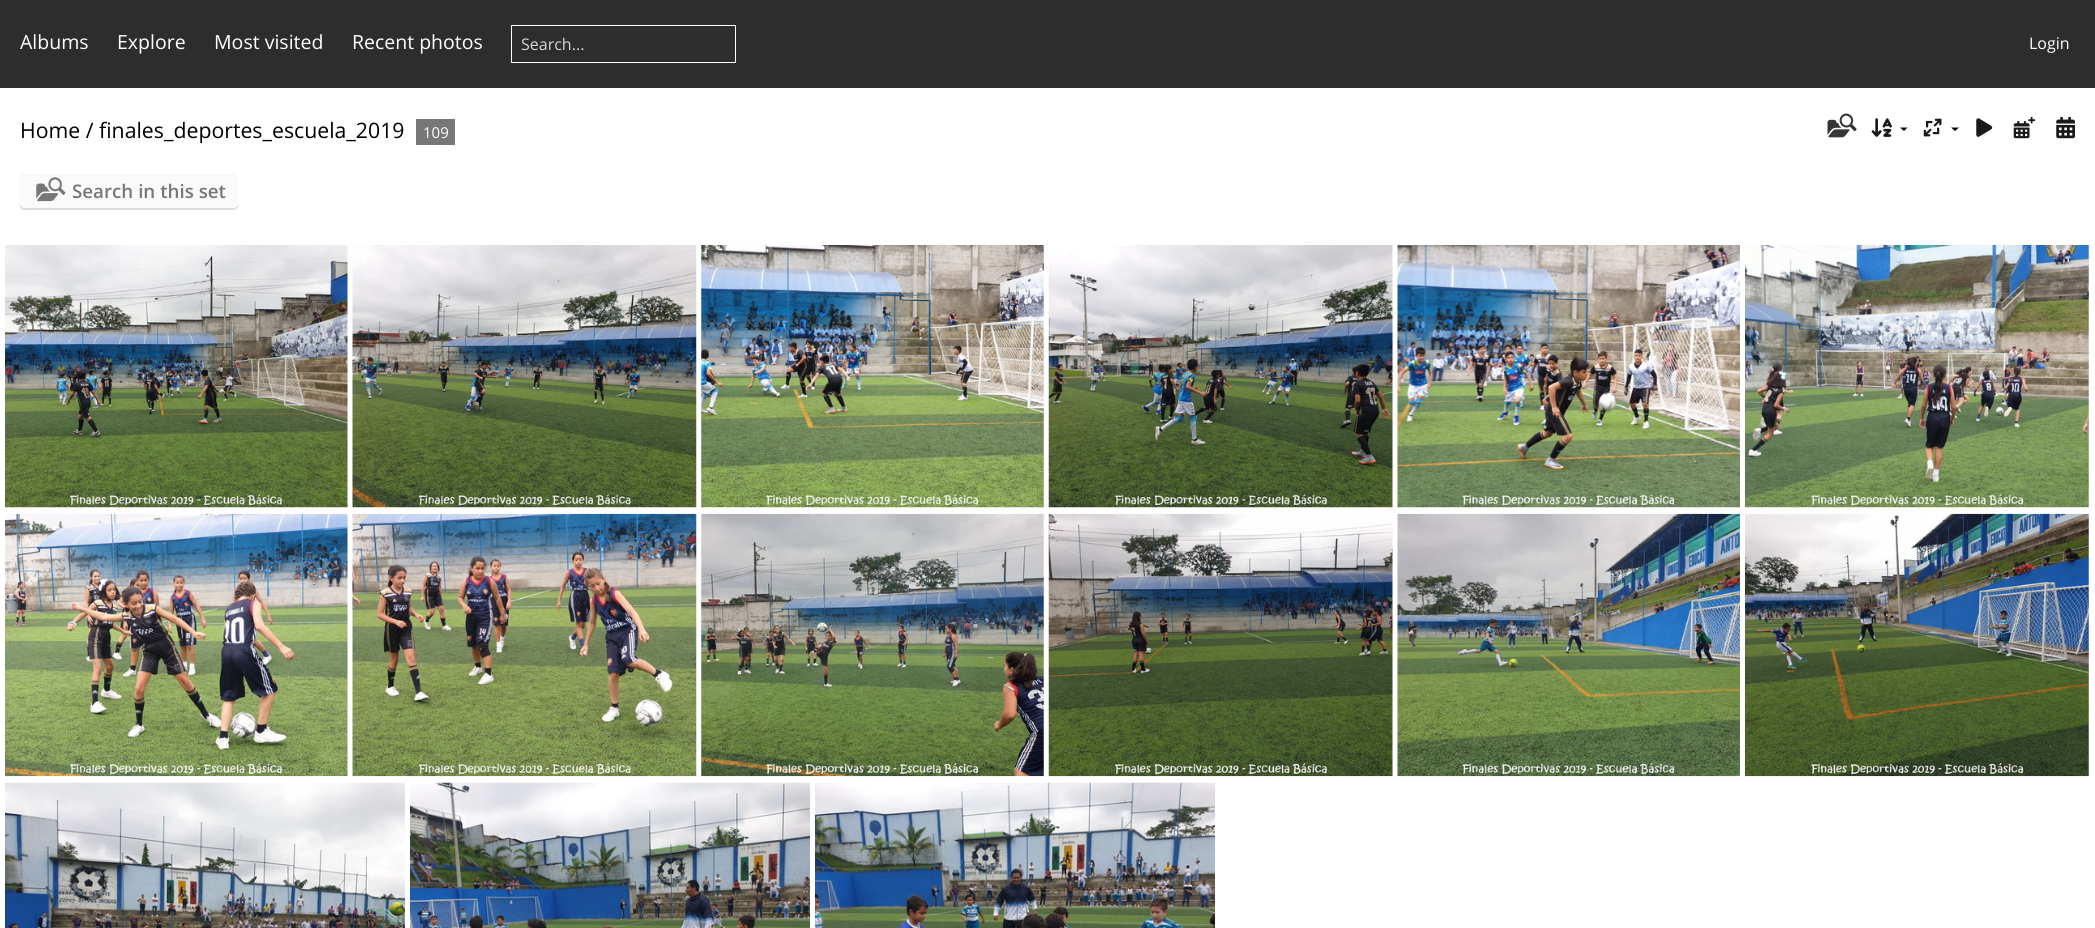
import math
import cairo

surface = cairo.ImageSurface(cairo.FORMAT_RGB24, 2095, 928)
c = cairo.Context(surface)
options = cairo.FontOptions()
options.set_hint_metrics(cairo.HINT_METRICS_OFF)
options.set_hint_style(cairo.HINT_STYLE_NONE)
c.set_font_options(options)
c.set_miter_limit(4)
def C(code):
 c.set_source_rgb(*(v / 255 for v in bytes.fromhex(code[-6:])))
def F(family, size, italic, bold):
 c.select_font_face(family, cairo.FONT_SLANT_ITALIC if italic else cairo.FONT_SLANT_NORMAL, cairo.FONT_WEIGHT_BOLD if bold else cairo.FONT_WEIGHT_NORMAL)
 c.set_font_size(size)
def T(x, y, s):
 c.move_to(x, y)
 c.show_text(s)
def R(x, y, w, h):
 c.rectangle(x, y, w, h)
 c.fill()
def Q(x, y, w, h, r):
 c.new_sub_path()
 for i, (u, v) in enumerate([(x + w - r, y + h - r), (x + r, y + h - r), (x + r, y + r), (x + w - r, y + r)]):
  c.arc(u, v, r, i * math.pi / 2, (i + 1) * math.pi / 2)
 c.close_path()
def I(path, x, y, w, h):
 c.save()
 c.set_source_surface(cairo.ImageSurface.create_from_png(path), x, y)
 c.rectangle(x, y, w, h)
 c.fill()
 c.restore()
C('ffffff')
c.paint()
C('2d2d2d')
R(0,0,2095,88)
F('Open Sans',19.5,0,0)
C('ffffff')
T(20,49,'Albums')
T(117,49,'Explore')
T(214,49,'Most visited')
T(352,49,'Recent photos')
c.rectangle(511.5,25.5,224,37)
c.set_line_width(1)
c.stroke()
F('Open Sans',16,0,0)
C('d6d6d6')
T(521,50,'Search...')
C('ffffff')
T(2029,49,'Login')
F('Open Sans',21.25,0,0)
C('000000')
T(20,138,'Home / finales_deportes_escuela_2019')
C('777777')
R(416,119,39,26)
F('Open Sans',15,0,0)
C('ffffff')
T(423,138,'109')
I('1.png',1827,113,30,25)
I('2.png',1871,118,21,19)
C('000000')
c.new_path()
c.move_to(1900,127.5)
c.line_to(1907.5,127.5)
c.line_to(1904,131)
c.close_path()
c.move_to(1951,127.5)
c.line_to(1959,127.5)
c.line_to(1955,131)
c.close_path()
c.fill()
I('3.png',2013,116,22,23)
I('4.png',2056,116,19,23)
I('5.png',1923,118,19,19)
I('6.png',1976,118,17,19)
C('dbdbdb')
c.new_path()
c.move_to(19,203)
c.curve_to(19,207,21,210,25,210)
c.line_to(233,210)
c.curve_to(240,210,239,201,239,196)
c.line_to(239,179)
c.line_to(239,201)
c.curve_to(239,205,236,208,232,208)
c.line_to(25,208)
c.curve_to(22,208,20,206,19,203)
c.close_path()
c.fill()
C('fafafa')
Q(19,173,220,35,6)
c.fill()
I('7.png',36,177,30,25)
F('Open Sans SemiBold',18.75,0,0)
C('777777')
T(72,198,'Search in this set')
I('8.png',5,245,343,263)
I('9.png',352,245,345,263)
I('10.png',701,245,343,263)
I('11.png',1048,245,345,263)
I('12.png',1397,245,343,263)
I('13.png',1745,245,344,263)
I('14.png',5,513,343,264)
I('15.png',352,513,345,264)
I('16.png',701,513,343,264)
I('17.png',1048,513,345,264)
I('18.png',1397,513,343,264)
I('19.png',1745,513,344,264)
I('20.png',5,782,400,146)
I('21.png',410,782,400,146)
I('22.png',815,782,400,146)
surface.write_to_png('o.png')
